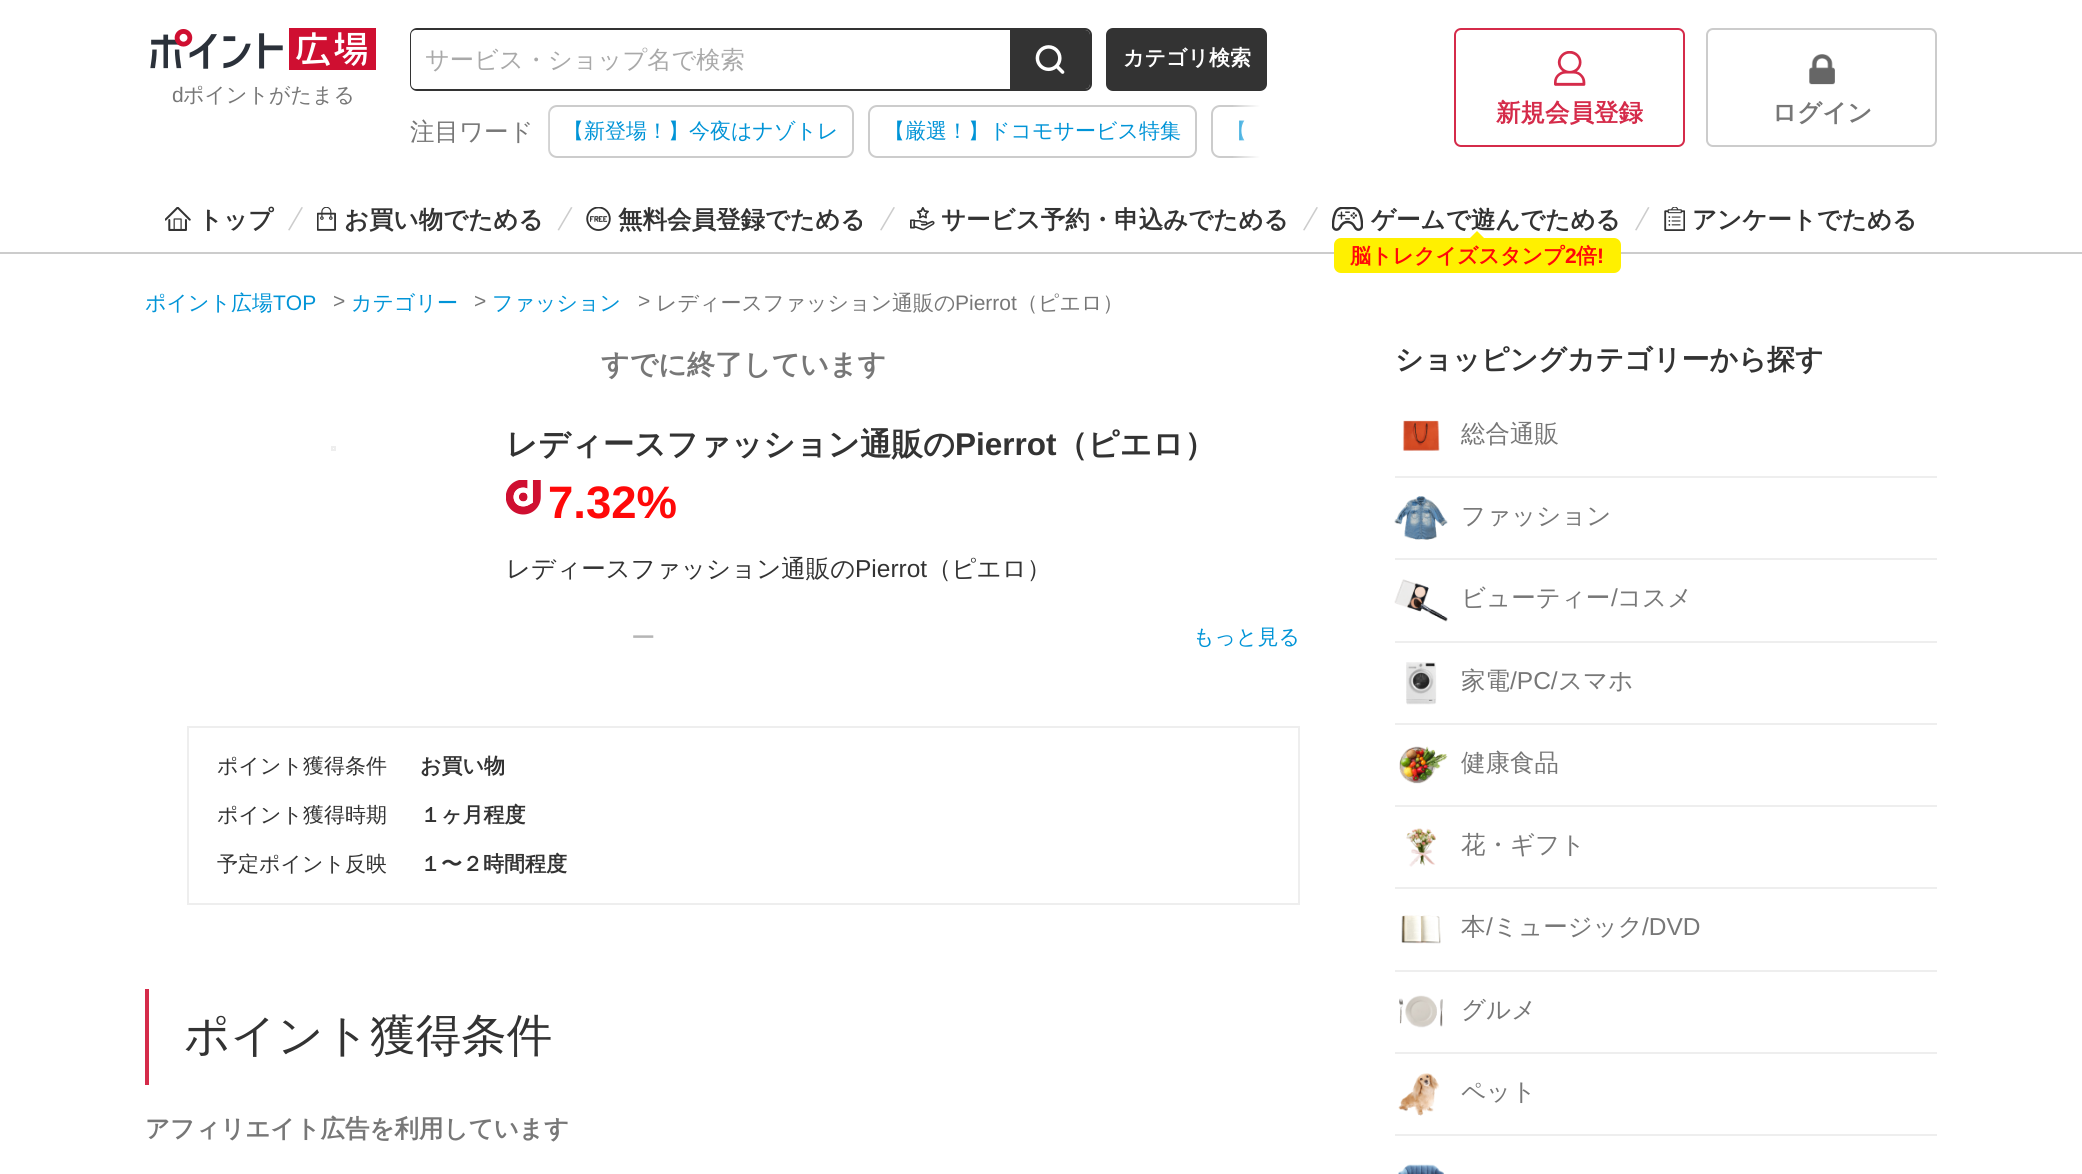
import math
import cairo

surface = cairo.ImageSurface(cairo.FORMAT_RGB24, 2082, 1174)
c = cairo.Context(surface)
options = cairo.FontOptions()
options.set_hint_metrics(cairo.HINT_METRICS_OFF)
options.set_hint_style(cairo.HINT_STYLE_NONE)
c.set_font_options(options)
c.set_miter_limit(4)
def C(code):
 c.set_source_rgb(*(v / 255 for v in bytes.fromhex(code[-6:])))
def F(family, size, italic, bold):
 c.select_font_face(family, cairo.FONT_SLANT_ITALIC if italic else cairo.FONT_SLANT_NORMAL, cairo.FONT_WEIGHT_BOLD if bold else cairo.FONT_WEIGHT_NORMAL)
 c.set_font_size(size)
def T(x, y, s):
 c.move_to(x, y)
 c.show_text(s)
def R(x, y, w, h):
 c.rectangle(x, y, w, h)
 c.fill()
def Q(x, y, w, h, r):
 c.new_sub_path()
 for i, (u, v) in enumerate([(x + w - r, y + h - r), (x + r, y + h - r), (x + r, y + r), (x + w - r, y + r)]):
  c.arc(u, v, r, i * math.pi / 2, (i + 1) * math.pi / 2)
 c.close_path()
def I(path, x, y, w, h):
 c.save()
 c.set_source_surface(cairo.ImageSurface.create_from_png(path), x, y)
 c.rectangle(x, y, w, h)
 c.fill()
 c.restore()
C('ffffff')
c.paint()
C('cccccc')
R(0,252,2082,2)
I('1.png',150,28,226,42)
F('Liberation Sans',21,0,0)
C('777777')
T(172,102,'d')
F('WenQuanYi Zen Hei Medium',21,0,0)
T(183,102,'ポイントがたまる')
Q(411,29,680,61,6)
C('333333')
c.stroke()
C('ffffff')
c.new_path()
c.move_to(416,30)
c.line_to(1010,30)
c.line_to(1010,89)
c.line_to(416,89)
c.curve_to(413,89,411,87,411,84)
c.line_to(411,35)
c.curve_to(411,32,413,30,416,30)
c.close_path()
c.fill()
F('WenQuanYi Zen Hei Medium',24.25,0,0)
C('a9a9a9')
T(425,68,'サービス・ショップ名で検索')
C('333333')
c.new_path()
c.move_to(1010,30)
c.line_to(1085,30)
c.curve_to(1088,30,1090,32,1090,35)
c.line_to(1090,84)
c.curve_to(1090,87,1088,89,1085,89)
c.line_to(1010,89)
c.close_path()
c.fill()
I('2.png',1035,45,30,29)
Q(1106,28,161,63,7)
c.fill()
F('WenQuanYi Zen Hei',21,0,1)
C('ffffff')
T(1123,65,'カテゴリ検索')
F('WenQuanYi Zen Hei Medium',24.5,0,0)
C('777777')
T(410,140,'注目ワード')
Q(549,106,304,51,8)
C('cccccc')
c.stroke()
gradient = cairo.LinearGradient(569,131,534,131)
gradient.add_color_stop_rgba(.5,1,1,1,0)
gradient.add_color_stop_rgba(.9,1,1,1,1)
gradient.add_color_stop_rgba(1,1,1,1,1)
c.set_source(gradient)
R(548,108,3,47)
F('WenQuanYi Zen Hei Medium',21,0,0)
C('0194d7')
T(563,138,'【新登場！】今夜はナゾトレ')
Q(869,106,327,51,8)
C('cccccc')
c.stroke()
C('0194d7')
T(884,138,'【厳選！】ドコモサービス特集')
Q(1455,29,229,117,6)
C('d52b4a')
c.stroke()
F('WenQuanYi Zen Hei',24.5,0,1)
T(1496,121,'新規会員登録')
c.save()
c.rectangle(534,91,733,81)
c.clip()
Q(1212,106,296,51,8)
C('cccccc')
c.stroke()
c.restore()
F('WenQuanYi Zen Hei Medium',21,0,0)
C('0194d7')
T(1226,138,'【')
gradient = cairo.LinearGradient(1232,131,1267,131)
gradient.add_color_stop_rgba(0,1,1,1,0)
gradient.add_color_stop_rgba(.8,1,1,1,1)
gradient.add_color_stop_rgba(1,1,1,1,1)
c.set_source(gradient)
R(1233,105,34,53)
I('3.png',1554,51,32,35)
Q(1707,29,229,117,6)
C('cccccc')
c.stroke()
I('4.png',1809,54,26,31)
F('WenQuanYi Zen Hei',24.5,0,1)
C('777777')
T(1772,121,'ログイン')
I('5.png',165,207,26,24)
C('333333')
T(198,228,'トップ')
C('cccccc')
c.new_path()
c.move_to(301.5,207)
c.line_to(303,207.5)
c.line_to(289.5,230.5)
c.line_to(288,230)
c.close_path()
c.fill()
I('6.png',317,207,19,24)
C('333333')
T(344,228,'お買い物でためる')
C('cccccc')
c.new_path()
c.move_to(571,207)
c.line_to(572.5,207.5)
c.line_to(559,230.5)
c.line_to(557.5,230)
c.close_path()
c.fill()
I('7.png',586,207,25,24)
C('333333')
T(618,228,'無料会員登録でためる')
C('cccccc')
c.new_path()
c.move_to(893.5,207)
c.line_to(895,207.5)
c.line_to(881.5,230.5)
c.line_to(880,230)
c.close_path()
c.fill()
I('8.png',910,207,25,24)
C('333333')
T(941,228,'サービス予約・申込みでためる')
C('cccccc')
c.new_path()
c.move_to(1316.5,207)
c.line_to(1318,207.5)
c.line_to(1304.5,230.5)
c.line_to(1303,230)
c.close_path()
c.fill()
I('9.png',1332,207,31,24)
C('333333')
T(1371,228,'ゲームで遊んでためる')
C('cccccc')
c.new_path()
c.move_to(1648,207)
c.line_to(1649.5,207.5)
c.line_to(1636.5,230.5)
c.line_to(1635,230)
c.close_path()
c.fill()
C('fff000')
Q(1334,238,287,35,7)
c.fill()
c.new_path()
c.move_to(1484,238)
c.line_to(1470,238)
c.line_to(1477,231)
c.close_path()
c.fill()
F('WenQuanYi Zen Hei',21,0,1)
C('ff0909')
T(1350,263,'脳トレクイズスタンプ')
F('Liberation Sans',21,0,1)
T(1565,263,'2')
F('WenQuanYi Zen Hei',21,0,1)
T(1576,263,'倍')
F('Liberation Sans',21,0,1)
T(1597,263,'!')
I('10.png',1664,207,21,24)
F('WenQuanYi Zen Hei',24.5,0,1)
C('333333')
T(1692,228,'アンケートでためる')
F('WenQuanYi Zen Hei Medium',21,0,0)
C('0194d7')
T(145,310,'ポイント広場')
F('Liberation Sans',21,0,0)
T(273,310,'TOP')
C('777777')
T(333,308,'>')
F('WenQuanYi Zen Hei Medium',21,0,0)
C('0194d7')
T(351,310,'カテゴリー')
F('Liberation Sans',21,0,0)
C('777777')
T(474,308,'>')
F('WenQuanYi Zen Hei Medium',21,0,0)
C('0194d7')
T(492,310,'ファッション')
F('Liberation Sans',21,0,0)
C('777777')
T(638,308,'>')
F('WenQuanYi Zen Hei Medium',21,0,0)
T(656,310,'レディースファッション通販の')
F('Liberation Sans',21,0,0)
T(955,310,'Pierrot')
F('WenQuanYi Zen Hei Medium',21,0,0)
T(1017,310,'（ピエロ）')
F('WenQuanYi Zen Hei',28,0,1)
T(601,374,'すでに終了しています')
c.rectangle(332,447,3,3)
C('eeeeee')
c.stroke()
F('WenQuanYi Zen Hei',31.5,0,1)
C('333333')
T(506,455,'レディースファッション通販の')
F('Liberation Sans',31.5,0,1)
T(955,455,'Pierrot')
F('WenQuanYi Zen Hei',31.5,0,1)
T(1056,455,'（ピエロ）')
I('11.png',506,480,35,35)
F('Liberation Sans',45.5,0,1)
C('ff0909')
T(548,518,'7.32%')
F('WenQuanYi Zen Hei Medium',24.5,0,0)
C('333333')
T(506,577,'レディースファッション通販の')
F('Liberation Sans',24.5,0,0)
T(855,577,'Pierrot')
F('WenQuanYi Zen Hei Medium',24.5,0,0)
T(927,577,'（ピエロ）')
T(631,646,'ー')
gradient = cairo.LinearGradient(903,616,903,656)
gradient.add_color_stop_rgba(0,1,1,1,0)
gradient.add_color_stop_rgba(.8,1,1,1,1)
c.set_source(gradient)
R(633,635,21,3)
F('WenQuanYi Zen Hei Medium',21,0,0)
C('0194d7')
T(1193,644,'もっと見る')
c.rectangle(188,727,1111,177)
C('eeeeee')
c.stroke()
C('333333')
T(217,773,'ポイント獲得条件')
F('WenQuanYi Zen Hei',21,0,1)
T(420,773,'お買い物')
F('WenQuanYi Zen Hei Medium',21,0,0)
T(217,822,'ポイント獲得時期')
F('WenQuanYi Zen Hei',21,0,1)
T(420,822,'１ヶ月程度')
F('WenQuanYi Zen Hei Medium',21,0,0)
T(217,871,'予定ポイント反映')
F('WenQuanYi Zen Hei',21,0,1)
T(420,871,'１〜２時間程度')
C('d52b4a')
R(145,989,4,96)
F('WenQuanYi Zen Hei Medium',45.5,0,0)
C('333333')
T(184,1051,'ポイント獲得条件')
F('WenQuanYi Zen Hei',24.5,0,1)
C('777777')
T(145,1137,'アフィリエイト広告を利用しています')
F('WenQuanYi Zen Hei',28,0,1)
C('333333')
T(1395,369,'ショッピングカテゴリーから探す')
C('eeeeee')
R(1395,476,542,2)
I('12.png',1402,420,38,31)
F('WenQuanYi Zen Hei Medium',24.5,0,0)
C('777777')
T(1461,442,'総合通販')
C('eeeeee')
R(1395,558,542,2)
I('13.png',1394,496,54,44)
C('777777')
T(1461,524,'ファッション')
C('eeeeee')
R(1395,641,542,2)
I('14.png',1394,579,54,43)
C('777777')
T(1461,606,'ビューティー')
F('Liberation Sans',24.5,0,0)
T(1611,606,'/')
F('WenQuanYi Zen Hei Medium',24.5,0,0)
T(1617,606,'コスメ')
C('eeeeee')
R(1395,723,542,2)
I('15.png',1406,662,31,43)
C('777777')
T(1461,689,'家電')
F('Liberation Sans',24.5,0,0)
T(1510,689,'/PC/')
F('WenQuanYi Zen Hei Medium',24.5,0,0)
T(1558,689,'スマホ')
C('eeeeee')
R(1395,805,542,2)
I('16.png',1399,746,49,38)
C('777777')
T(1461,771,'健康食品')
C('eeeeee')
R(1395,887,542,2)
I('17.png',1406,828,30,39)
C('777777')
T(1461,853,'花・ギフト')
C('eeeeee')
R(1395,970,542,2)
I('18.png',1401,915,40,29)
C('777777')
T(1461,935,'本')
F('Liberation Sans',24.5,0,0)
T(1486,935,'/')
F('WenQuanYi Zen Hei Medium',24.5,0,0)
T(1493,935,'ミュージック')
F('Liberation Sans',24.5,0,0)
T(1642,935,'/DVD')
C('eeeeee')
R(1395,1052,542,2)
I('19.png',1399,995,44,33)
F('WenQuanYi Zen Hei Medium',24.5,0,0)
C('777777')
T(1461,1018,'グルメ')
C('eeeeee')
R(1395,1134,542,2)
I('20.png',1398,1073,42,43)
C('777777')
T(1461,1100,'ペット')
I('21.png',1398,1164,47,10)
surface.write_to_png('o.png')
